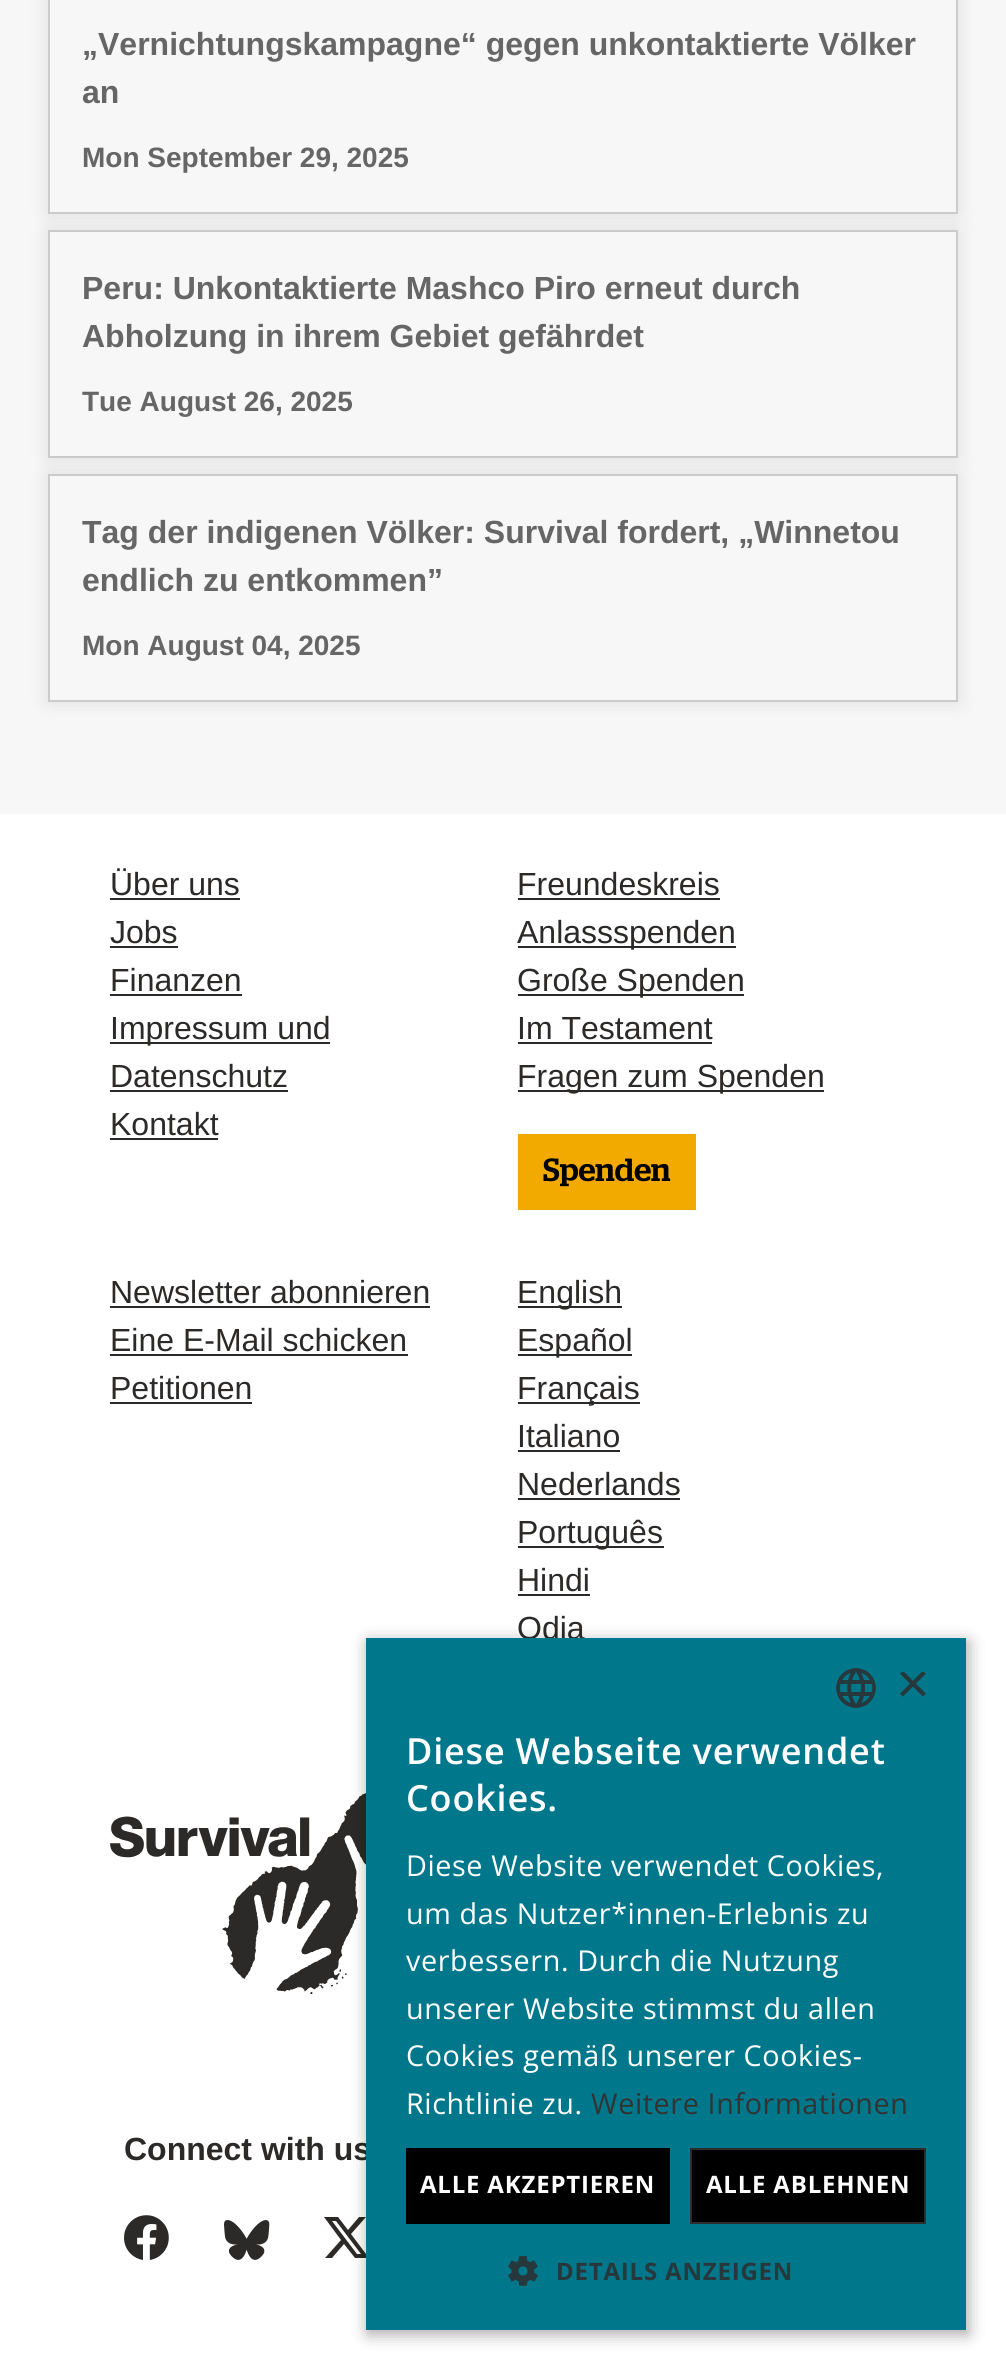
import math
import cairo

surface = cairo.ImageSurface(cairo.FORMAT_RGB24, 1006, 2369)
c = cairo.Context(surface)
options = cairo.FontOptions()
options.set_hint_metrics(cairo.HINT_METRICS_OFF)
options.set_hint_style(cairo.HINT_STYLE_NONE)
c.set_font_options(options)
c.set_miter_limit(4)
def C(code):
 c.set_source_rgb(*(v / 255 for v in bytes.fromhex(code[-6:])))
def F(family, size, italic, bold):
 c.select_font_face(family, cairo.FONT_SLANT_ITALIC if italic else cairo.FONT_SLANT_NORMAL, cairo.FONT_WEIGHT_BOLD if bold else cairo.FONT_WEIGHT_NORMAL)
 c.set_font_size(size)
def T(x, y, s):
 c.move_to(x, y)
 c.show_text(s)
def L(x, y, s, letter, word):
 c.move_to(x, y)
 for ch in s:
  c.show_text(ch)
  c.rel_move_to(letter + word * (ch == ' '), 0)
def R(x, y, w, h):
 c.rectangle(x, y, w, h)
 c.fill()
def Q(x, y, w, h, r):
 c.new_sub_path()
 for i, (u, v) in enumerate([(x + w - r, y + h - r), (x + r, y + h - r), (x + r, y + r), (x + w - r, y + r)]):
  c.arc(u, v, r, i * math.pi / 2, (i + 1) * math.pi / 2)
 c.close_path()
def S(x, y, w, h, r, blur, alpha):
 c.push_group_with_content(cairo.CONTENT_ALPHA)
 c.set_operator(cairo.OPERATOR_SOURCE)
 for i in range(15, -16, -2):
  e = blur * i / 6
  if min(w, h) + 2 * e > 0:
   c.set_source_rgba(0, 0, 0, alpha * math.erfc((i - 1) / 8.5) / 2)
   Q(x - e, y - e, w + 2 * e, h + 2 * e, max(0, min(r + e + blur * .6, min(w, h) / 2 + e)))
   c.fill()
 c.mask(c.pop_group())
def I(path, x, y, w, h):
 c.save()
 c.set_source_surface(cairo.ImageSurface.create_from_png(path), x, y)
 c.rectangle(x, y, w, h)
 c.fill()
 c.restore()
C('f7f7f7')
c.paint()
c.save()
c.set_fill_rule(cairo.FILL_RULE_EVEN_ODD)
c.new_path()
c.move_to(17,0)
c.line_to(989,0)
c.line_to(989,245)
c.line_to(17,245)
c.close_path()
c.move_to(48,-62)
c.line_to(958,-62)
c.line_to(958,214)
c.line_to(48,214)
c.close_path()
c.clip()
C('000000')
S(48,-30,910,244,0,10,.1)
c.restore()
c.rectangle(49,-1,908,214)
C('cccccc')
c.stroke()
F('Liberation Sans',32,0,1)
C('666666')
T(82,55,'„Vernichtungskampagne“ gegen unkontaktierte Völker')
T(82,103,'an')
F('Liberation Sans',28,0,1)
T(82,167,'Mon September 29, 2025')
c.save()
c.set_fill_rule(cairo.FILL_RULE_EVEN_ODD)
c.new_path()
c.move_to(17,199)
c.line_to(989,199)
c.line_to(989,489)
c.line_to(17,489)
c.close_path()
c.move_to(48,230)
c.line_to(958,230)
c.line_to(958,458)
c.line_to(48,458)
c.close_path()
c.clip()
C('000000')
S(48,230,910,228,0,10,.1)
c.restore()
c.rectangle(49,231,908,226)
C('cbcbcb')
c.stroke()
F('Liberation Sans',32,0,1)
C('666666')
T(82,299,'Peru: Unkontaktierte Mashco Piro erneut durch')
T(82,347,'Abholzung in ihrem Gebiet gefährdet')
F('Liberation Sans',28,0,1)
T(82,411,'Tue August 26, 2025')
c.save()
c.set_fill_rule(cairo.FILL_RULE_EVEN_ODD)
c.new_path()
c.move_to(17,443)
c.line_to(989,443)
c.line_to(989,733)
c.line_to(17,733)
c.close_path()
c.move_to(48,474)
c.line_to(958,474)
c.line_to(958,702)
c.line_to(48,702)
c.close_path()
c.clip()
C('000000')
S(48,474,910,228,0,10,.1)
c.restore()
c.rectangle(49,475,908,226)
C('cbcbcb')
c.stroke()
F('Liberation Sans',32,0,1)
C('666666')
T(82,543,'Tag der indigenen Völker: Survival fordert, „Winnetou')
T(82,591,'endlich zu entkommen”')
F('Liberation Sans',28,0,1)
T(82,655,'Mon August 04, 2025')
C('ffffff')
R(0,814,1006,1555)
F('Liberation Sans',32,0,0)
C('2c2a29')
T(110,895,'Über uns')
R(110,898,130,2)
T(110,943,'Jobs')
R(110,946,68,2)
T(110,991,'Finanzen')
R(110,994,132,2)
R(110,1042,220,2)
T(110,1039,'Impressum und')
T(110,1087,'Datenschutz')
R(110,1090,178,2)
T(110,1135,'Kontakt')
R(110,1138,108,2)
T(517,895,'Freundeskreis')
R(518,898,202,2)
R(518,946,218,2)
T(517,943,'Anlassspenden')
R(518,994,226,2)
T(517,991,'Große Spenden')
T(517,1039,'Im Testament')
R(518,1042,194,2)
R(518,1090,306,2)
T(517,1087,'Fragen zum Spenden')
C('f2a900')
R(518,1134,178,76)
F('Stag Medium',32,0,0)
C('000000')
T(543,1181,'Spenden')
F('Liberation Sans',32,0,0)
C('2c2a29')
T(110,1303,'Newsletter abonnieren')
R(110,1306,320,2)
T(110,1351,'Eine E-Mail schicken')
R(110,1354,298,2)
T(110,1399,'Petitionen')
R(110,1402,142,2)
R(518,1306,104,2)
T(517,1303,'English')
R(518,1354,114,2)
T(517,1351,'Español')
R(518,1402,122,2)
T(517,1399,'Français')
T(517,1447,'Italiano')
R(518,1450,102,2)
T(517,1495,'Nederlands')
R(518,1498,162,2)
R(518,1546,146,2)
T(517,1543,'Português')
T(517,1591,'Hindi')
R(518,1594,72,2)
T(517,1639,'Odia')
I('1.png',110,1793,256,201)
F('Liberation Sans',32,0,1)
T(124,2160,'Connect with us')
I('2.png',124,2215,45,45)
I('3.png',224,2220,46,40)
c.new_path()
c.move_to(359,2217)
c.line_to(366,2217)
c.line_to(351,2234)
c.line_to(369,2258)
c.line_to(355,2258)
c.line_to(344,2244)
c.line_to(332,2258)
c.line_to(325,2258)
c.line_to(341,2240)
c.line_to(324,2217)
c.line_to(338,2217)
c.line_to(348,2230)
c.close_path()
c.move_to(357,2254)
c.line_to(361,2254)
c.line_to(336,2221)
c.line_to(332,2221)
c.close_path()
c.fill()
C('000000')
S(368,1642,600,692,0,8,.35)
C('00778b')
R(366,1638,600,692)
I('4.png',836,1668,40,40)
c.save()
c.rectangle(896,1672,30,30)
c.clip()
F('Liberation Sans',58,0,0)
C('26383b')
T(896,1703,'×')
c.restore()
F('Open Sans SemiBold',36,0,0)
C('ffffff')
L(406,1764,'Diese Webseite verwendet',.8,0)
L(406,1811,'Cookies.',.8,0)
F('Open Sans',28.75,0,0)
L(406,1876,'Diese Website verwendet Cookies,',.6,0)
L(406,1924,'um das Nutzer*innen-Erlebnis zu',.6,0)
L(406,1971,'verbessern. Durch die Nutzung',.6,0)
L(406,2019,'unserer Website stimmst du allen',.6,0)
L(406,2066,'Cookies gemäß unserer Cookies-',.6,0)
L(406,2114,'Richtlinie zu.',.6,0)
C('333333')
L(591,2114,'Weitere Informationen',.6,0)
C('000000')
R(406,2148,264,76)
F('Open Sans',24,0,1)
C('ffffff')
L(420,2193,'ALLE AKZEPTIEREN',.8,0)
C('000000')
c.rectangle(691,2149,234,74)
c.fill_preserve()
C('2d2d2d')
c.stroke()
C('ffffff')
L(706,2193,'ALLE ABLEHNEN',.8,0)
I('5.png',508,2256,30,30)
C('26383b')
L(556,2280,'DETAILS ANZEIGEN',.8,0)
surface.write_to_png('o.png')
